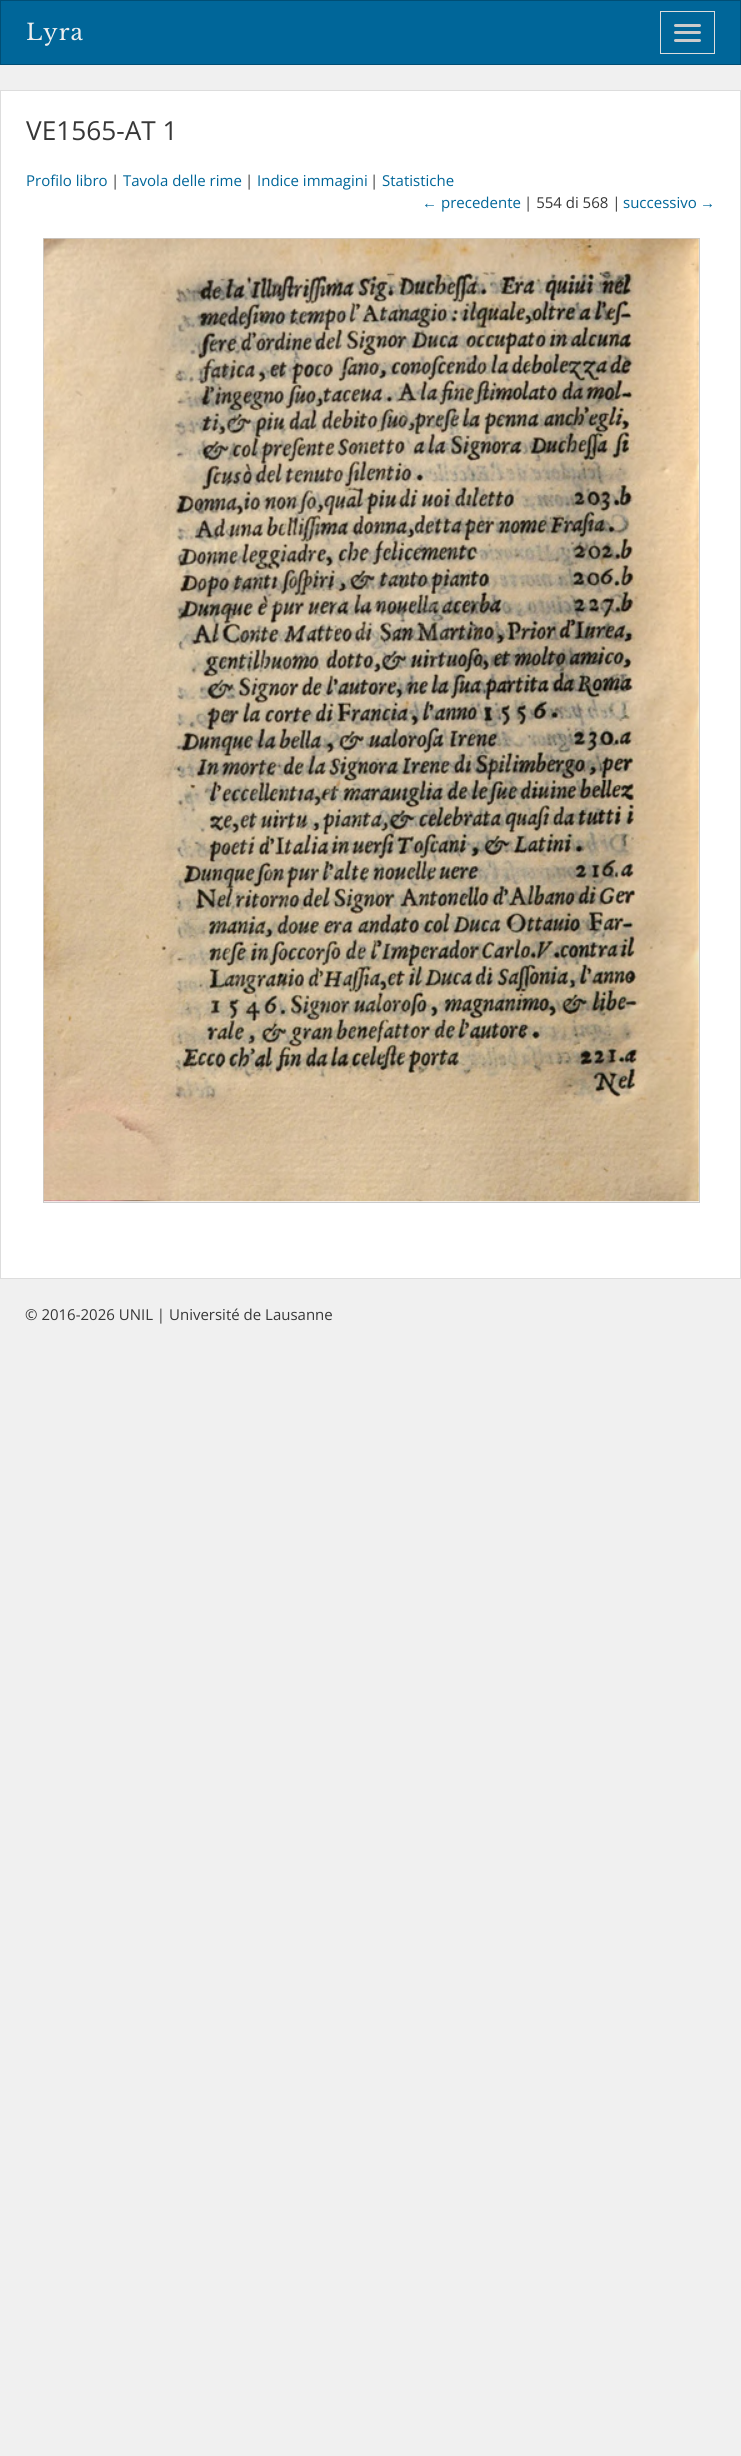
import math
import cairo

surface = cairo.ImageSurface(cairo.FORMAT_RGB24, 741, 2456)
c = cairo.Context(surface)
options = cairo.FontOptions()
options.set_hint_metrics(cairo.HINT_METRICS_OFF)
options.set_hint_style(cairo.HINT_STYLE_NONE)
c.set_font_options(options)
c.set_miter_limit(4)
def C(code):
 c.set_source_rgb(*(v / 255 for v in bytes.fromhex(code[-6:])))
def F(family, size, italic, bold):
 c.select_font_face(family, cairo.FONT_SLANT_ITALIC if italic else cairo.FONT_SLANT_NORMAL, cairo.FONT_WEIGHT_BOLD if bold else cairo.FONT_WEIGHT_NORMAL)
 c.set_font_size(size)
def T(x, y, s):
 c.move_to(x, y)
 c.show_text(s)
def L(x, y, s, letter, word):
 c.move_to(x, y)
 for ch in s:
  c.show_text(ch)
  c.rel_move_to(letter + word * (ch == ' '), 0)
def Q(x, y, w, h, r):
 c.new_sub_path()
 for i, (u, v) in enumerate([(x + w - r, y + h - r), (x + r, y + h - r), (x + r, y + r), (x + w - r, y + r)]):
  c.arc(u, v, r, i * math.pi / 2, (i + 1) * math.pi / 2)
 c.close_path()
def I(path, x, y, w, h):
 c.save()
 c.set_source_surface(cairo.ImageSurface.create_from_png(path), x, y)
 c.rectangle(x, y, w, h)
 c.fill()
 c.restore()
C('f0f0f0')
c.paint()
C('006699')
c.rectangle(.5,.5,740,64)
c.fill_preserve()
C('004e75')
c.set_line_width(1)
c.stroke()
F('Libre Baskerville',22.5,0,0)
C('eeeeee')
L(26,40,'Lyra',1,0)
c.rectangle(660.5,11.5,54,42)
C('dddddd')
c.stroke()
C('cccccc')
Q(674,24,27,3,1.5)
c.fill()
Q(674,31,27,3,1.5)
c.fill()
Q(674,39,27,3,1.5)
c.fill()
C('ffffff')
c.rectangle(.5,90.5,740,1188)
c.fill_preserve()
C('dddddd')
c.stroke()
F('Open Sans',26.25,0,0)
C('373737')
T(26,140,'VE1565-AT 1')
F('Open Sans',15,0,0)
C('006699')
T(26,186,'Profilo libro')
C('373737')
T(111,186,'|')
C('006699')
T(123,186,'Tavola delle rime')
C('373737')
T(245,186,'|')
C('006699')
T(257,186,'Indice immagini')
C('373737')
T(370,186,'|')
C('006699')
T(382,186,'Statistiche')
F('Liberation Sans',15,0,0)
T(422,208,'←')
F('Open Sans',15,0,0)
T(441,208,'precedente')
C('373737')
T(524,208,'| 554 di 568 |')
C('006699')
T(623,208,'successivo')
F('Liberation Sans',15,0,0)
T(700,208,'→')
c.rectangle(43.5,238.5,656,964)
C('cccccc')
c.stroke()
I('1.png',43,238,656,964)
F('Open Sans',15,0,0)
C('373737')
T(25,1320,'© 2016-2026 UNIL | Université de Lausanne')
surface.write_to_png('o.png')
